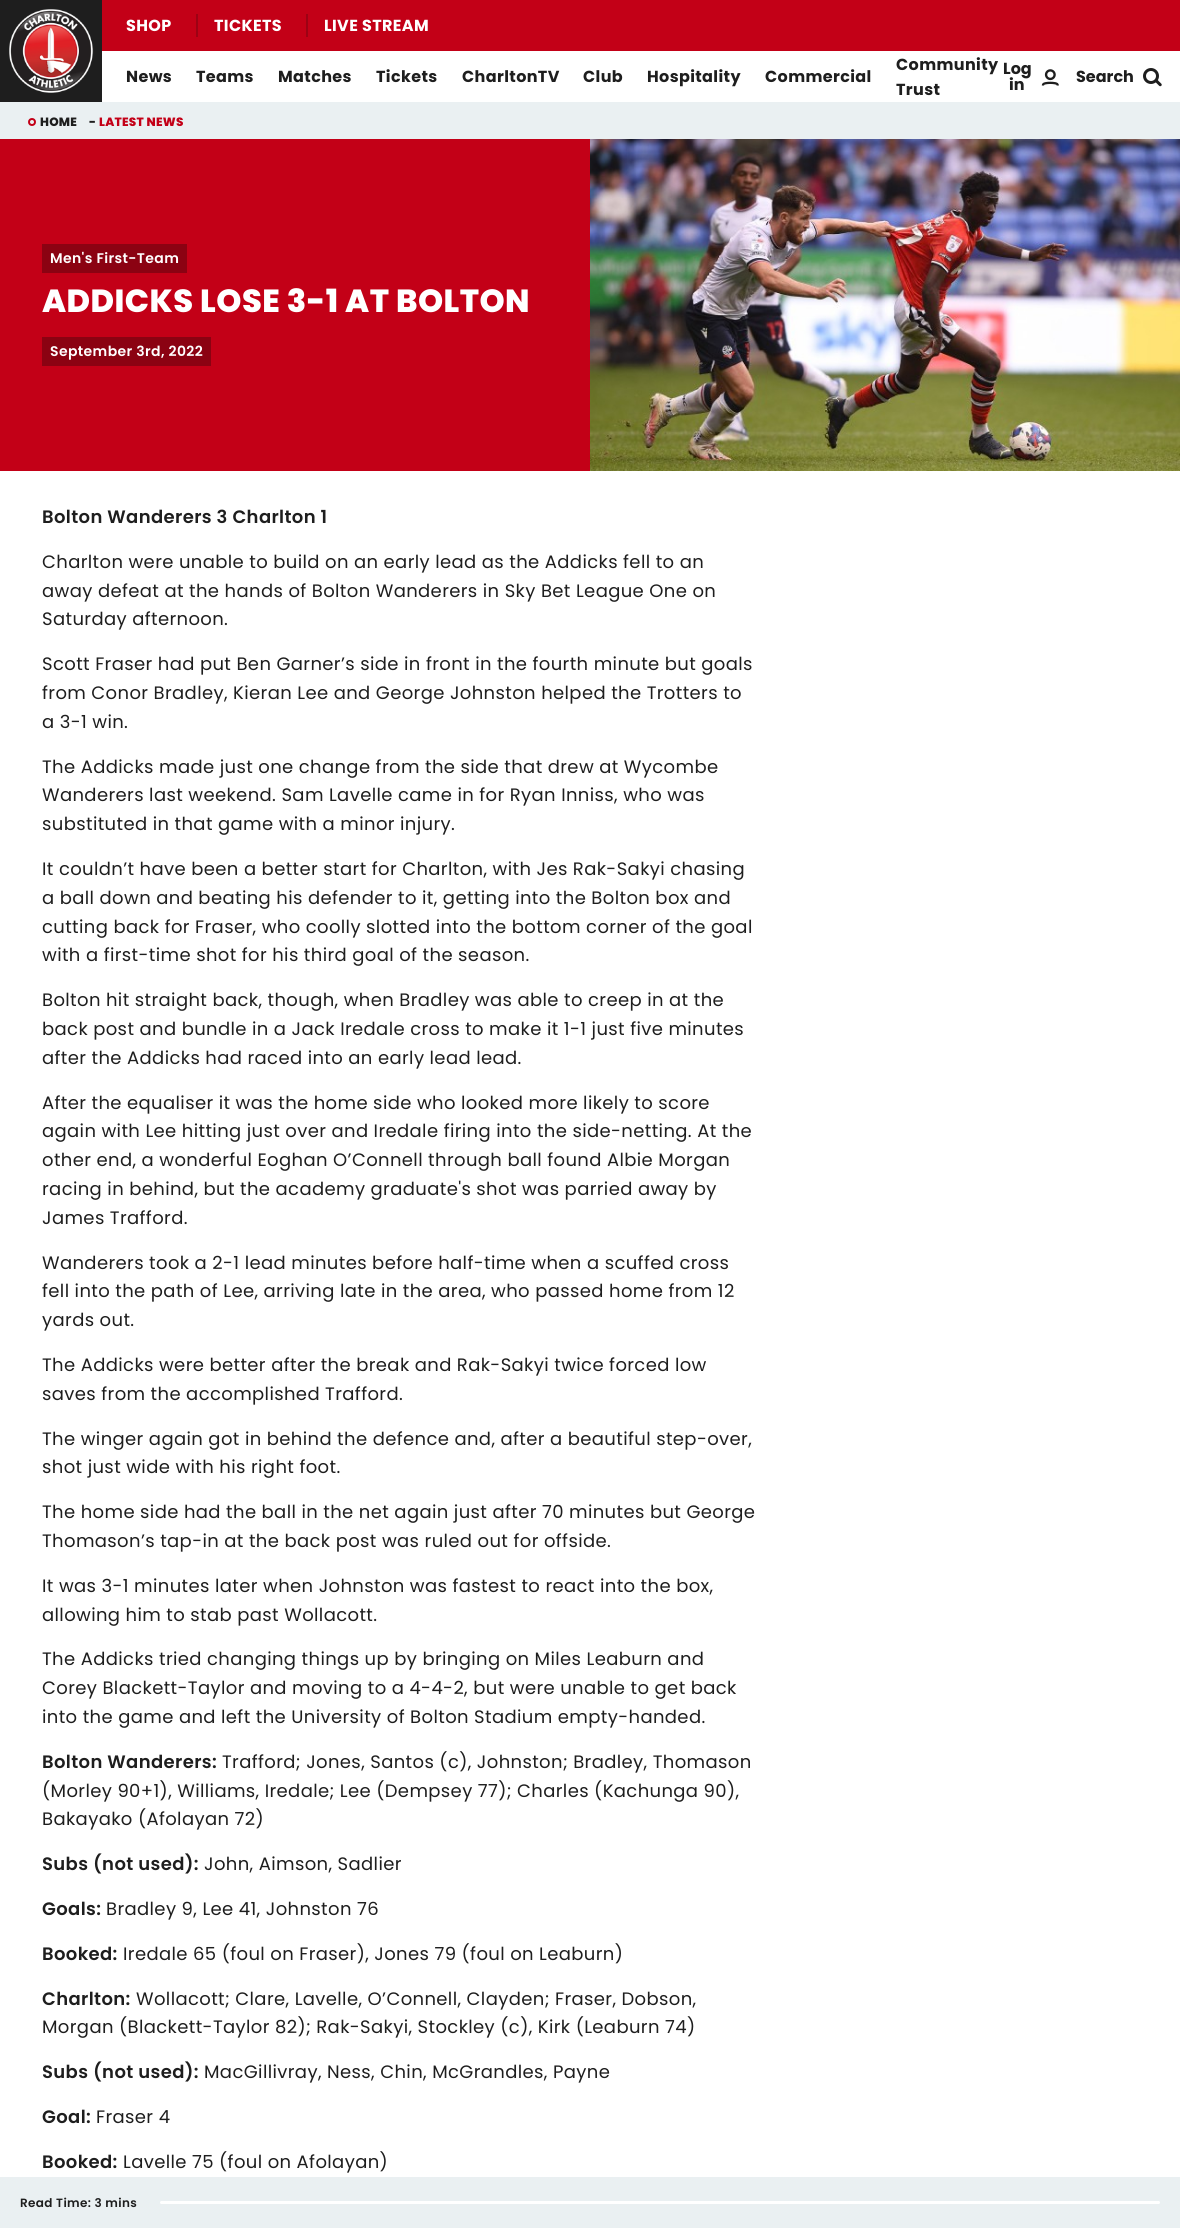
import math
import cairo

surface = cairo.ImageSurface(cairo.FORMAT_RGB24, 1180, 2228)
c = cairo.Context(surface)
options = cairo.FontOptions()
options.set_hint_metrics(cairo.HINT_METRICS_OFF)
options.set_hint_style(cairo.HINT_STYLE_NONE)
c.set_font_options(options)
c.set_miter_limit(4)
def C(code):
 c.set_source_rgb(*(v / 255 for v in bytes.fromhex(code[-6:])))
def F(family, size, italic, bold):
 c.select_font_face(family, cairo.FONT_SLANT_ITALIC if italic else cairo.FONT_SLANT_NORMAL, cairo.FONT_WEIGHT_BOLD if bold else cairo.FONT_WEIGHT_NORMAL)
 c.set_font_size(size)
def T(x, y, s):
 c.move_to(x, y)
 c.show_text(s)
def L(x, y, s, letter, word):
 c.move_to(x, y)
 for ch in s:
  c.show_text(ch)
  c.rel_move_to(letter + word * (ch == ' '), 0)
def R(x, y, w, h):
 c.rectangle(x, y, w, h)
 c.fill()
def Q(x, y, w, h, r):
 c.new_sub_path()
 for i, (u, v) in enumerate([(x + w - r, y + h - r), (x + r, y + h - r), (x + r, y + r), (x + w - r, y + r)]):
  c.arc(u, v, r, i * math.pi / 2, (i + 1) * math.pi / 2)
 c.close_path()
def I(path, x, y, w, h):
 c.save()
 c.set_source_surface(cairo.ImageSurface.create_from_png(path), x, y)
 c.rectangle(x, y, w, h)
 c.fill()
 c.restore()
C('ffffff')
c.paint()
C('1e1e1e')
R(0,0,102,102)
I('1.png',9,9,85,84)
C('c30017')
R(102,0,1078,51)
F('Poppins',16,0,1)
C('ffffff')
L(126,31,'SHOP',.37,0)
L(214,31,'TICKETS',.37,0)
C('9c0214')
R(196,14,2,23)
C('ffffff')
L(324,31,'LIVE STREAM',.37,0)
C('9c0214')
R(306,14,2,23)
C('1e1e1e')
L(126,82,'News',.37,0)
L(196,82,'Teams',.37,0)
L(278,82,'Matches',.37,0)
L(376,82,'Tickets',.37,0)
L(462,82,'CharltonTV',.37,0)
L(583,82,'Club',.37,0)
L(647,82,'Hospitality',.37,0)
L(765,82,'Commercial',.37,0)
L(896,70,'Community',.37,0)
L(896,95,'Trust',.37,0)
T(1003,74,'Log')
T(1009,90,'in')
I('2.png',1041,69,18,17)
T(1076,82,'Search')
I('3.png',1143,68,19,19)
C('eaf0f2')
R(0,102,1180,37)
c.arc(32,122,3,0,2 * math.pi)
C('c30017')
c.stroke()
F('Poppins ExtraBold',12,0,0)
C('1e1e1e')
L(40,126,'HOME',.25,0)
L(89,126,'-',.25,0)
C('c30017')
L(99,126,'LATEST NEWS',.25,0)
R(0,139,590,332)
C('8b0212')
R(42,244,145,29)
F('Poppins SemiBold',14,0,0)
C('ffffff')
L(50,263,'Men\'s First-Team',.37,0)
F('Poppins ExtraBold',32,0,0)
L(42,312,'ADDICKS LOSE 3-1 AT BOLTON',.45,0)
C('8b0212')
R(42,337,169,29)
F('Poppins SemiBold',14,0,0)
C('ffffff')
L(50,356,'September 3rd, 2022',.37,0)
I('4.png',590,139,590,332)
F('Poppins SemiBold',18,0,0)
C('1e1e1e')
L(42,523,'Bolton Wanderers 3 Charlton 1',.37,0)
F('Poppins',18,0,0)
L(42,568,'Charlton were unable to build on an early lead as the Addicks fell to an',.37,0)
L(42,597,'away defeat at the hands of Bolton Wanderers in Sky Bet League One on',.37,0)
L(42,625,'Saturday afternoon.',.37,0)
L(42,670,'Scott Fraser had put Ben Garner’s side in front in the fourth minute but goals',.37,0)
L(42,699,'from Conor Bradley, Kieran Lee and George Johnston helped the Trotters to',.37,0)
L(42,728,'a 3-1 win.',.37,0)
L(42,773,'The Addicks made just one change from the side that drew at Wycombe',.37,0)
L(42,801,'Wanderers last weekend. Sam Lavelle came in for Ryan Inniss, who was',.37,0)
L(42,830,'substituted in that game with a minor injury.',.37,0)
L(42,875,'It couldn’t have been a better start for Charlton, with Jes Rak-Sakyi chasing',.37,0)
L(42,904,'a ball down and beating his defender to it, getting into the Bolton box and',.37,0)
L(42,933,'cutting back for Fraser, who coolly slotted into the bottom corner of the goal',.37,0)
L(42,961,'with a first-time shot for his third goal of the season.',.37,0)
L(42,1006,'Bolton hit straight back, though, when Bradley was able to creep in at the',.37,0)
L(42,1035,'back post and bundle in a Jack Iredale cross to make it 1-1 just five minutes',.37,0)
L(42,1064,'after the Addicks had raced into an early lead lead.',.37,0)
L(42,1109,'After the equaliser it was the home side who looked more likely to score',.37,0)
L(42,1137,'again with Lee hitting just over and Iredale firing into the side-netting. At the',.37,0)
L(42,1166,'other end, a wonderful Eoghan O’Connell through ball found Albie Morgan',.37,0)
L(42,1195,'racing in behind, but the academy graduate\'s shot was parried away by',.37,0)
L(42,1224,'James Trafford.',.37,0)
L(42,1269,'Wanderers took a 2-1 lead minutes before half-time when a scuffed cross',.37,0)
L(42,1297,'fell into the path of Lee, arriving late in the area, who passed home from 12',.37,0)
L(42,1326,'yards out.',.37,0)
L(42,1371,'The Addicks were better after the break and Rak-Sakyi twice forced low',.37,0)
L(42,1400,'saves from the accomplished Trafford.',.37,0)
L(42,1445,'The winger again got in behind the defence and, after a beautiful step-over,',.37,0)
L(42,1473,'shot just wide with his right foot.',.37,0)
L(42,1518,'The home side had the ball in the net again just after 70 minutes but George',.37,0)
L(42,1547,'Thomason’s tap-in at the back post was ruled out for offside.',.37,0)
L(42,1592,'It was 3-1 minutes later when Johnston was fastest to react into the box,',.37,0)
L(42,1621,'allowing him to stab past Wollacott.',.37,0)
L(42,1665,'The Addicks tried changing things up by bringing on Miles Leaburn and',.37,0)
L(42,1694,'Corey Blackett-Taylor and moving to a 4-4-2, but were unable to get back',.37,0)
L(42,1723,'into the game and left the University of Bolton Stadium empty-handed.',.37,0)
F('Poppins SemiBold',18,0,0)
L(42,1768,'Bolton Wanderers:',.37,0)
F('Poppins',18,0,0)
L(222,1768,'Trafford; Jones, Santos (c), Johnston; Bradley, Thomason',.37,0)
L(42,1797,'(Morley 90+1), Williams, Iredale; Lee (Dempsey 77); Charles (Kachunga 90),',.37,0)
L(42,1825,'Bakayako (Afolayan 72)',.37,0)
F('Poppins SemiBold',18,0,0)
L(42,1870,'Subs (not used):',.37,0)
F('Poppins',18,0,0)
L(204,1870,'John, Aimson, Sadlier',.37,0)
F('Poppins SemiBold',18,0,0)
L(42,1915,'Goals:',.37,0)
F('Poppins',18,0,0)
L(106,1915,'Bradley 9, Lee 41, Johnston 76',.37,0)
F('Poppins SemiBold',18,0,0)
L(42,1960,'Booked:',.37,0)
F('Poppins',18,0,0)
L(123,1960,'Iredale 65 (foul on Fraser), Jones 79 (foul on Leaburn)',.37,0)
F('Poppins SemiBold',18,0,0)
L(42,2005,'Charlton:',.37,0)
F('Poppins',18,0,0)
L(136,2005,'Wollacott; Clare, Lavelle, O’Connell, Clayden; Fraser, Dobson,',.37,0)
L(42,2033,'Morgan (Blackett-Taylor 82); Rak-Sakyi, Stockley (c), Kirk (Leaburn 74)',.37,0)
F('Poppins SemiBold',18,0,0)
L(42,2078,'Subs (not used):',.37,0)
F('Poppins',18,0,0)
L(204,2078,'MacGillivray, Ness, Chin, McGrandles, Payne',.37,0)
F('Poppins SemiBold',18,0,0)
L(42,2123,'Goal:',.37,0)
F('Poppins',18,0,0)
L(96,2123,'Fraser 4',.37,0)
F('Poppins SemiBold',18,0,0)
L(42,2168,'Booked:',.37,0)
F('Poppins',18,0,0)
L(123,2168,'Lavelle 75 (foul on Afolayan)',.37,0)
C('eaf0f2')
R(0,2177,1180,51)
F('Poppins SemiBold',12,0,0)
C('1e1e1e')
L(20,2207,'Read Time: 3 mins',.37,0)
C('ffffff')
Q(160,2201,1000,3,1.5)
c.fill()
surface.write_to_png('o.png')
